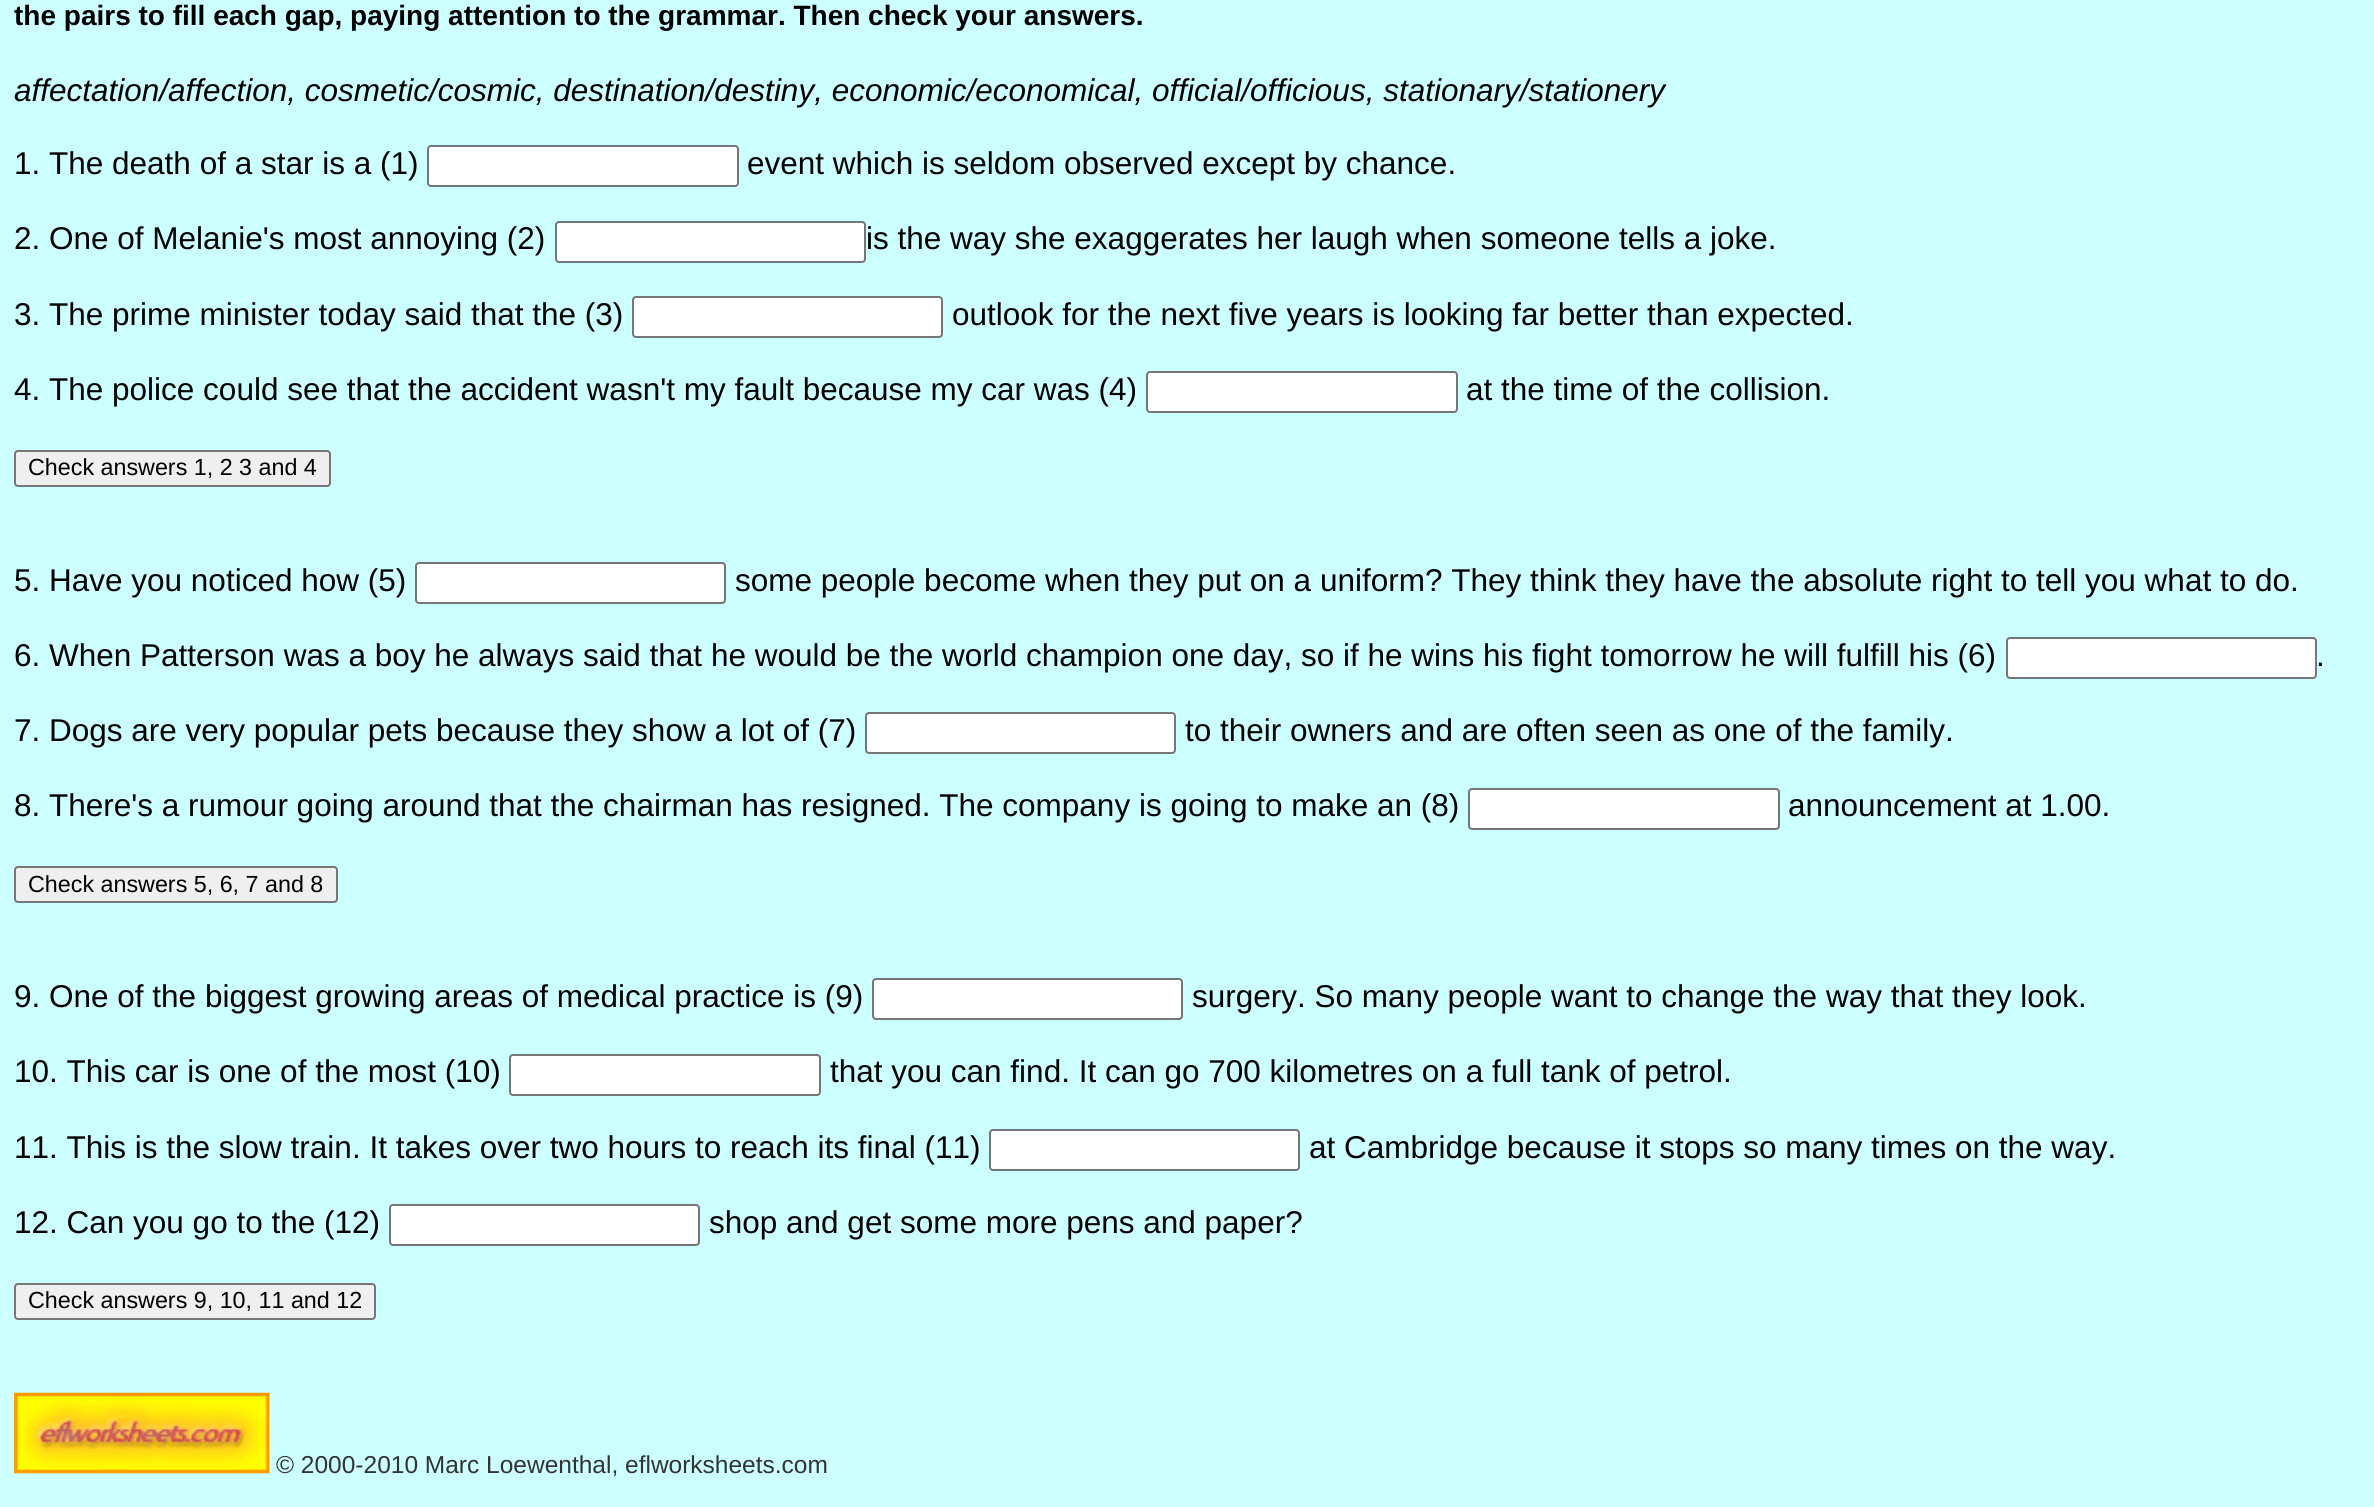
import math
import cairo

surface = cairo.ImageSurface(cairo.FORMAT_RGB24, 2374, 1507)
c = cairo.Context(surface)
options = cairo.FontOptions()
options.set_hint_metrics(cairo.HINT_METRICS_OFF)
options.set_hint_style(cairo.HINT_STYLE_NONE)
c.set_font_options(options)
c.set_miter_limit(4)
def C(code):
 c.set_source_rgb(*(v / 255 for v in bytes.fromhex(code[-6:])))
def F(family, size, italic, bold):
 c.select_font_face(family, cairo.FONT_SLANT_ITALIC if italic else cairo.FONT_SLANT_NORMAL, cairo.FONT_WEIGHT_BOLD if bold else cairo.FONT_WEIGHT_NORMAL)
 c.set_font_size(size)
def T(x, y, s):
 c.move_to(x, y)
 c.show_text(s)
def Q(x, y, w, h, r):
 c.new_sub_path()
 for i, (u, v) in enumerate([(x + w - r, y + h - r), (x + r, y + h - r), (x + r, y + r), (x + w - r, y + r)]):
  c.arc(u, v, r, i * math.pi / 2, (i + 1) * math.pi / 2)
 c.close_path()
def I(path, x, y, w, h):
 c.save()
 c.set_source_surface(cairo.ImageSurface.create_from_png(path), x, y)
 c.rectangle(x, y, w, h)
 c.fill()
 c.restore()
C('ccffff')
c.paint()
F('Liberation Sans',28,0,1)
C('000000')
T(14,25,'the pairs to fill each gap, paying attention to the grammar. Then check your answers.')
F('Liberation Sans',31.5,1,0)
T(14,101,'affectation/affection, cosmetic/cosmic, destination/destiny, economic/economical, official/officious, stationary/stationery')
F('Liberation Sans',31.5,0,0)
T(14,174,'1. The death of a star is a (1)')
C('ffffff')
Q(428,146,310,40,3)
c.fill_preserve()
C('767676')
c.stroke()
C('000000')
T(747,174,'event which is seldom observed except by chance.')
T(14,249,'2. One of Melanie\'s most annoying (2)')
C('ffffff')
Q(556,222,309,40,3)
c.fill_preserve()
C('767676')
c.stroke()
C('000000')
T(866,249,'is the way she exaggerates her laugh when someone tells a joke.')
T(14,325,'3. The prime minister today said that the (3)')
C('ffffff')
Q(633,297,309,40,3)
c.fill_preserve()
C('767676')
c.stroke()
C('000000')
T(952,325,'outlook for the next five years is looking far better than expected.')
T(14,400,'4. The police could see that the accident wasn\'t my fault because my car was (4)')
C('ffffff')
Q(1147,372,310,40,3)
c.fill_preserve()
C('767676')
c.stroke()
C('000000')
T(1466,400,'at the time of the collision.')
C('efefef')
Q(15,451,315,35,3)
c.fill_preserve()
C('767676')
c.stroke()
F('Liberation Sans',23.3,0,0)
C('000000')
T(28,475,'Check answers 1, 2 3 and 4')
F('Liberation Sans',31.5,0,0)
T(14,591,'5. Have you noticed how (5)')
C('ffffff')
Q(416,563,309,40,3)
c.fill_preserve()
C('767676')
c.stroke()
C('000000')
T(735,591,'some people become when they put on a uniform? They think they have the absolute right to tell you what to do.')
T(14,666,'6. When Patterson was a boy he always said that he would be the world champion one day, so if he wins his fight tomorrow he will fulfill his (6)')
C('ffffff')
Q(2007,638,309,40,3)
c.fill_preserve()
C('767676')
c.stroke()
C('000000')
T(2316,666,'.')
T(14,741,'7. Dogs are very popular pets because they show a lot of (7)')
C('ffffff')
Q(866,713,309,40,3)
c.fill_preserve()
C('767676')
c.stroke()
C('000000')
T(1185,741,'to their owners and are often seen as one of the family.')
T(14,816,'8. There\'s a rumour going around that the chairman has resigned. The company is going to make an (8)')
C('ffffff')
Q(1469,789,310,40,3)
c.fill_preserve()
C('767676')
c.stroke()
C('000000')
T(1788,816,'announcement at 1.00.')
C('efefef')
Q(15,867,322,35,3)
c.fill_preserve()
C('767676')
c.stroke()
F('Liberation Sans',23.3,0,0)
C('000000')
T(28,892,'Check answers 5, 6, 7 and 8')
F('Liberation Sans',31.5,0,0)
T(14,1007,'9. One of the biggest growing areas of medical practice is (9)')
C('ffffff')
Q(873,979,309,40,3)
c.fill_preserve()
C('767676')
c.stroke()
C('000000')
T(1192,1007,'surgery. So many people want to change the way that they look.')
T(14,1082,'10. This car is one of the most (10)')
C('ffffff')
Q(510,1055,310,40,3)
c.fill_preserve()
C('767676')
c.stroke()
C('000000')
T(830,1082,'that you can find. It can go 700 kilometres on a full tank of petrol.')
T(14,1158,'11. This is the slow train. It takes over two hours to reach its final (11)')
C('ffffff')
Q(990,1130,309,40,3)
c.fill_preserve()
C('767676')
c.stroke()
C('000000')
T(1309,1158,'at Cambridge because it stops so many times on the way.')
T(14,1233,'12. Can you go to the (12)')
C('ffffff')
Q(390,1205,309,40,3)
c.fill_preserve()
C('767676')
c.stroke()
C('000000')
T(709,1233,'shop and get some more pens and paper?')
C('efefef')
Q(15,1284,360,35,3)
c.fill_preserve()
C('767676')
c.stroke()
F('Liberation Sans',23.3,0,0)
C('000000')
T(28,1308,'Check answers 9, 10, 11 and 12')
I('1.png',14,1392,256,82)
F('Liberation Sans',24.5,0,0)
C('333333')
T(276,1473,'© 2000-2010 Marc Loewenthal, eflworksheets.com')
surface.write_to_png('o.png')
